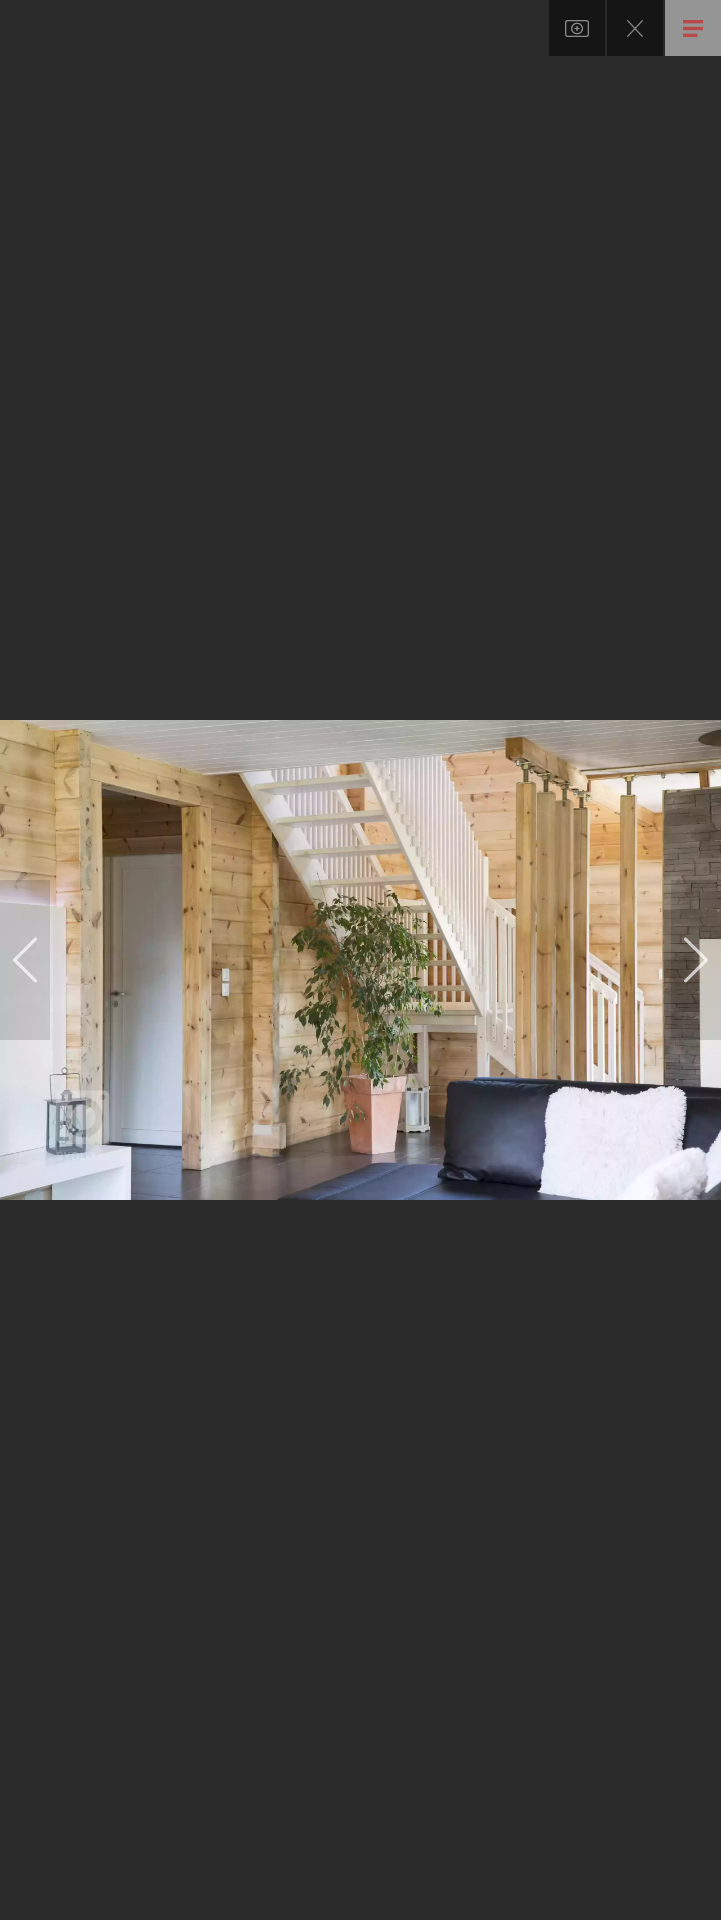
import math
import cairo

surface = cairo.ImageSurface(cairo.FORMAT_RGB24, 721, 1920)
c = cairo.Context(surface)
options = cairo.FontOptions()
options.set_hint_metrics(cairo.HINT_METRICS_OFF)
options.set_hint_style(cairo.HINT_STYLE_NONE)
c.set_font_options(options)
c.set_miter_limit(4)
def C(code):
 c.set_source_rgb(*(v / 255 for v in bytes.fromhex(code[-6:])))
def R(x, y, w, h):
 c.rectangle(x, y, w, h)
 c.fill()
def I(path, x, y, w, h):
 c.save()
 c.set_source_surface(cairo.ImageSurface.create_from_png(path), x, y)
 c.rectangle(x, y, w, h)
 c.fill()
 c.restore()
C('2a2a2a')
c.paint()
C('151515')
R(549,0,56,56)
I('1.png',565,20,24,17)
R(607,0,56,56)
I('2.png',627,20,16,17)
C('959595')
R(665,0,56,56)
I('3.png',683,20,20,17)
I('4.png',0,720,721,480)
c.set_source_rgba(0,0,0,0.14)
R(0,880,50,160)
I('5.png',13,937,24,46)
R(671,880,50,160)
I('6.png',684,937,24,46)
surface.write_to_png('o.png')
